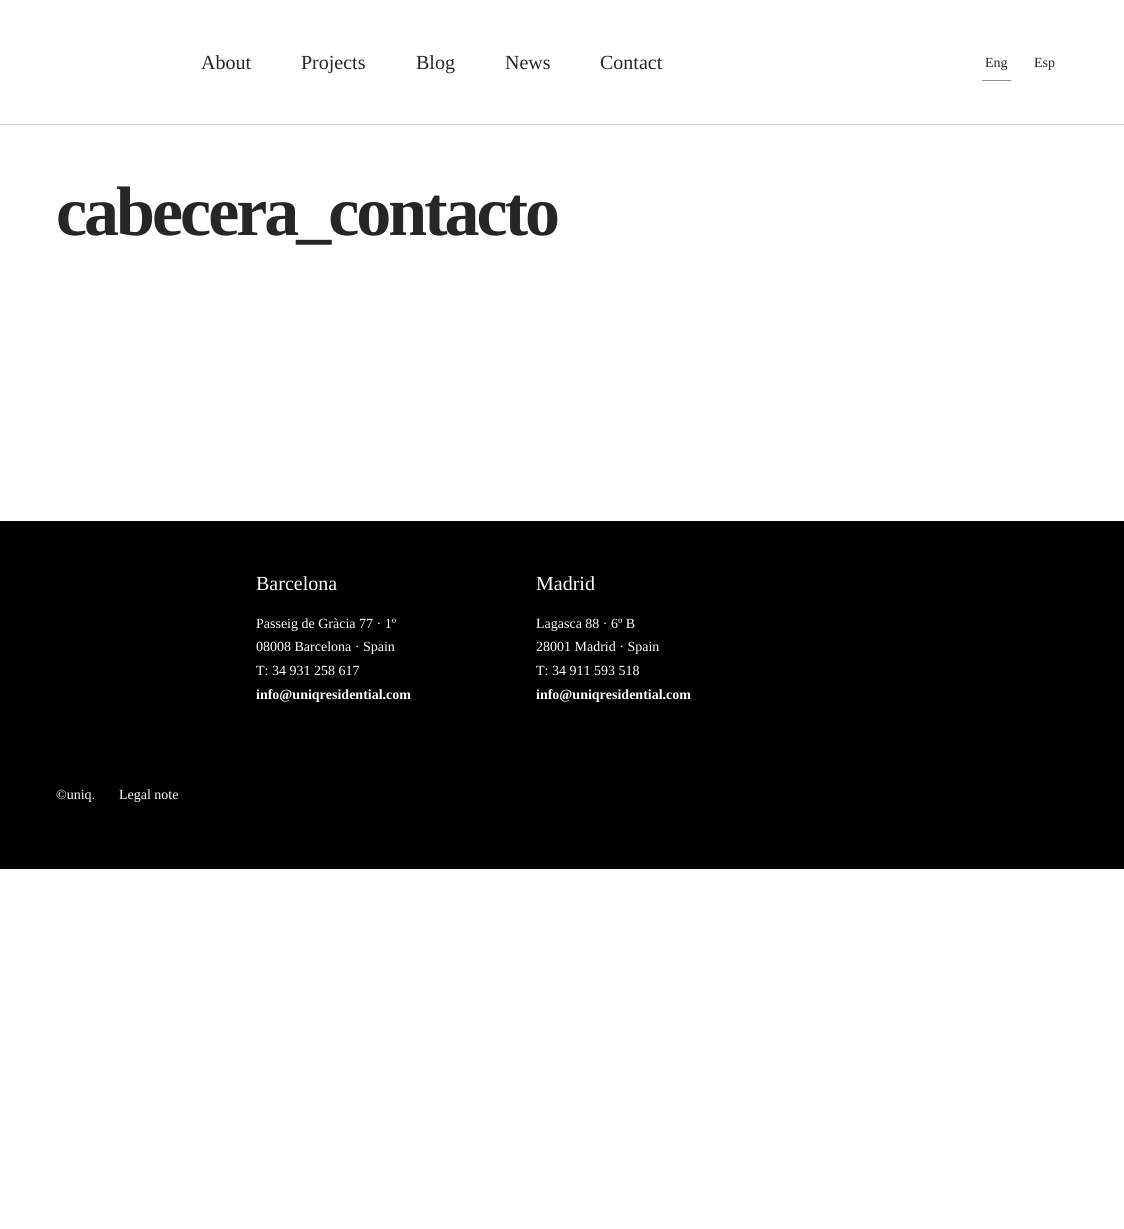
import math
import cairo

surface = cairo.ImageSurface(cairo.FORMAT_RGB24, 1124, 1229)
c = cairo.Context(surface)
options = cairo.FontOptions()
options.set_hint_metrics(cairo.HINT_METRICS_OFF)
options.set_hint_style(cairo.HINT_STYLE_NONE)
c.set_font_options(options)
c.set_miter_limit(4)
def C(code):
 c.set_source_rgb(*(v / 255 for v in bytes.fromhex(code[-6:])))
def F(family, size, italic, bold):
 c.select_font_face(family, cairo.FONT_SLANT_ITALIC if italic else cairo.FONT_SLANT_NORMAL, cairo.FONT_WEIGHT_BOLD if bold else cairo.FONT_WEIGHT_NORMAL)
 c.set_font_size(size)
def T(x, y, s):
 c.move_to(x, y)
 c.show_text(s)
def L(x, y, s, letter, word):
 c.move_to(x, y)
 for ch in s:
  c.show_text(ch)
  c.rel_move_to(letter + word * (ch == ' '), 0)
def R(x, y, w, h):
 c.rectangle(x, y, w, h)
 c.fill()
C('ffffff')
c.paint()
C('d4d4d4')
R(0,124,1124,1)
F('Liberation Serif',20,0,0)
C('262626')
T(201,69,'About')
T(301,69,'Projects')
T(416,69,'Blog')
T(505,69,'News')
T(600,69,'Contact')
F('Liberation Serif',14,0,0)
T(985,67,'Eng')
C('919191')
R(982,80,29,1)
C('262626')
T(1034,67,'Esp')
F('Liberation Serif',70,0,1)
L(56,235,'cabecera_contacto',-3,0)
C('000000')
R(0,521,1124,348)
F('Liberation Serif',20,0,0)
C('ffffff')
T(256,590,'Barcelona')
F('Liberation Serif',14,0,0)
T(256,628,'Passeig de Gràcia 77 · 1º')
T(256,651,'08008 Barcelona · Spain')
T(256,675,'T: 34 931 258 617')
F('Liberation Serif',14,0,1)
T(256,699,'info@uniqresidential.com')
F('Liberation Serif',20,0,0)
T(536,590,'Madrid')
F('Liberation Serif',14,0,0)
T(536,628,'Lagasca 88 · 6º B')
T(536,651,'28001 Madrid · Spain')
T(536,675,'T: 34 911 593 518')
F('Liberation Serif',14,0,1)
T(536,699,'info@uniqresidential.com')
F('Liberation Serif',14,0,0)
T(56,799,'©uniq.')
T(119,799,'Legal note')
surface.write_to_png('o.png')
